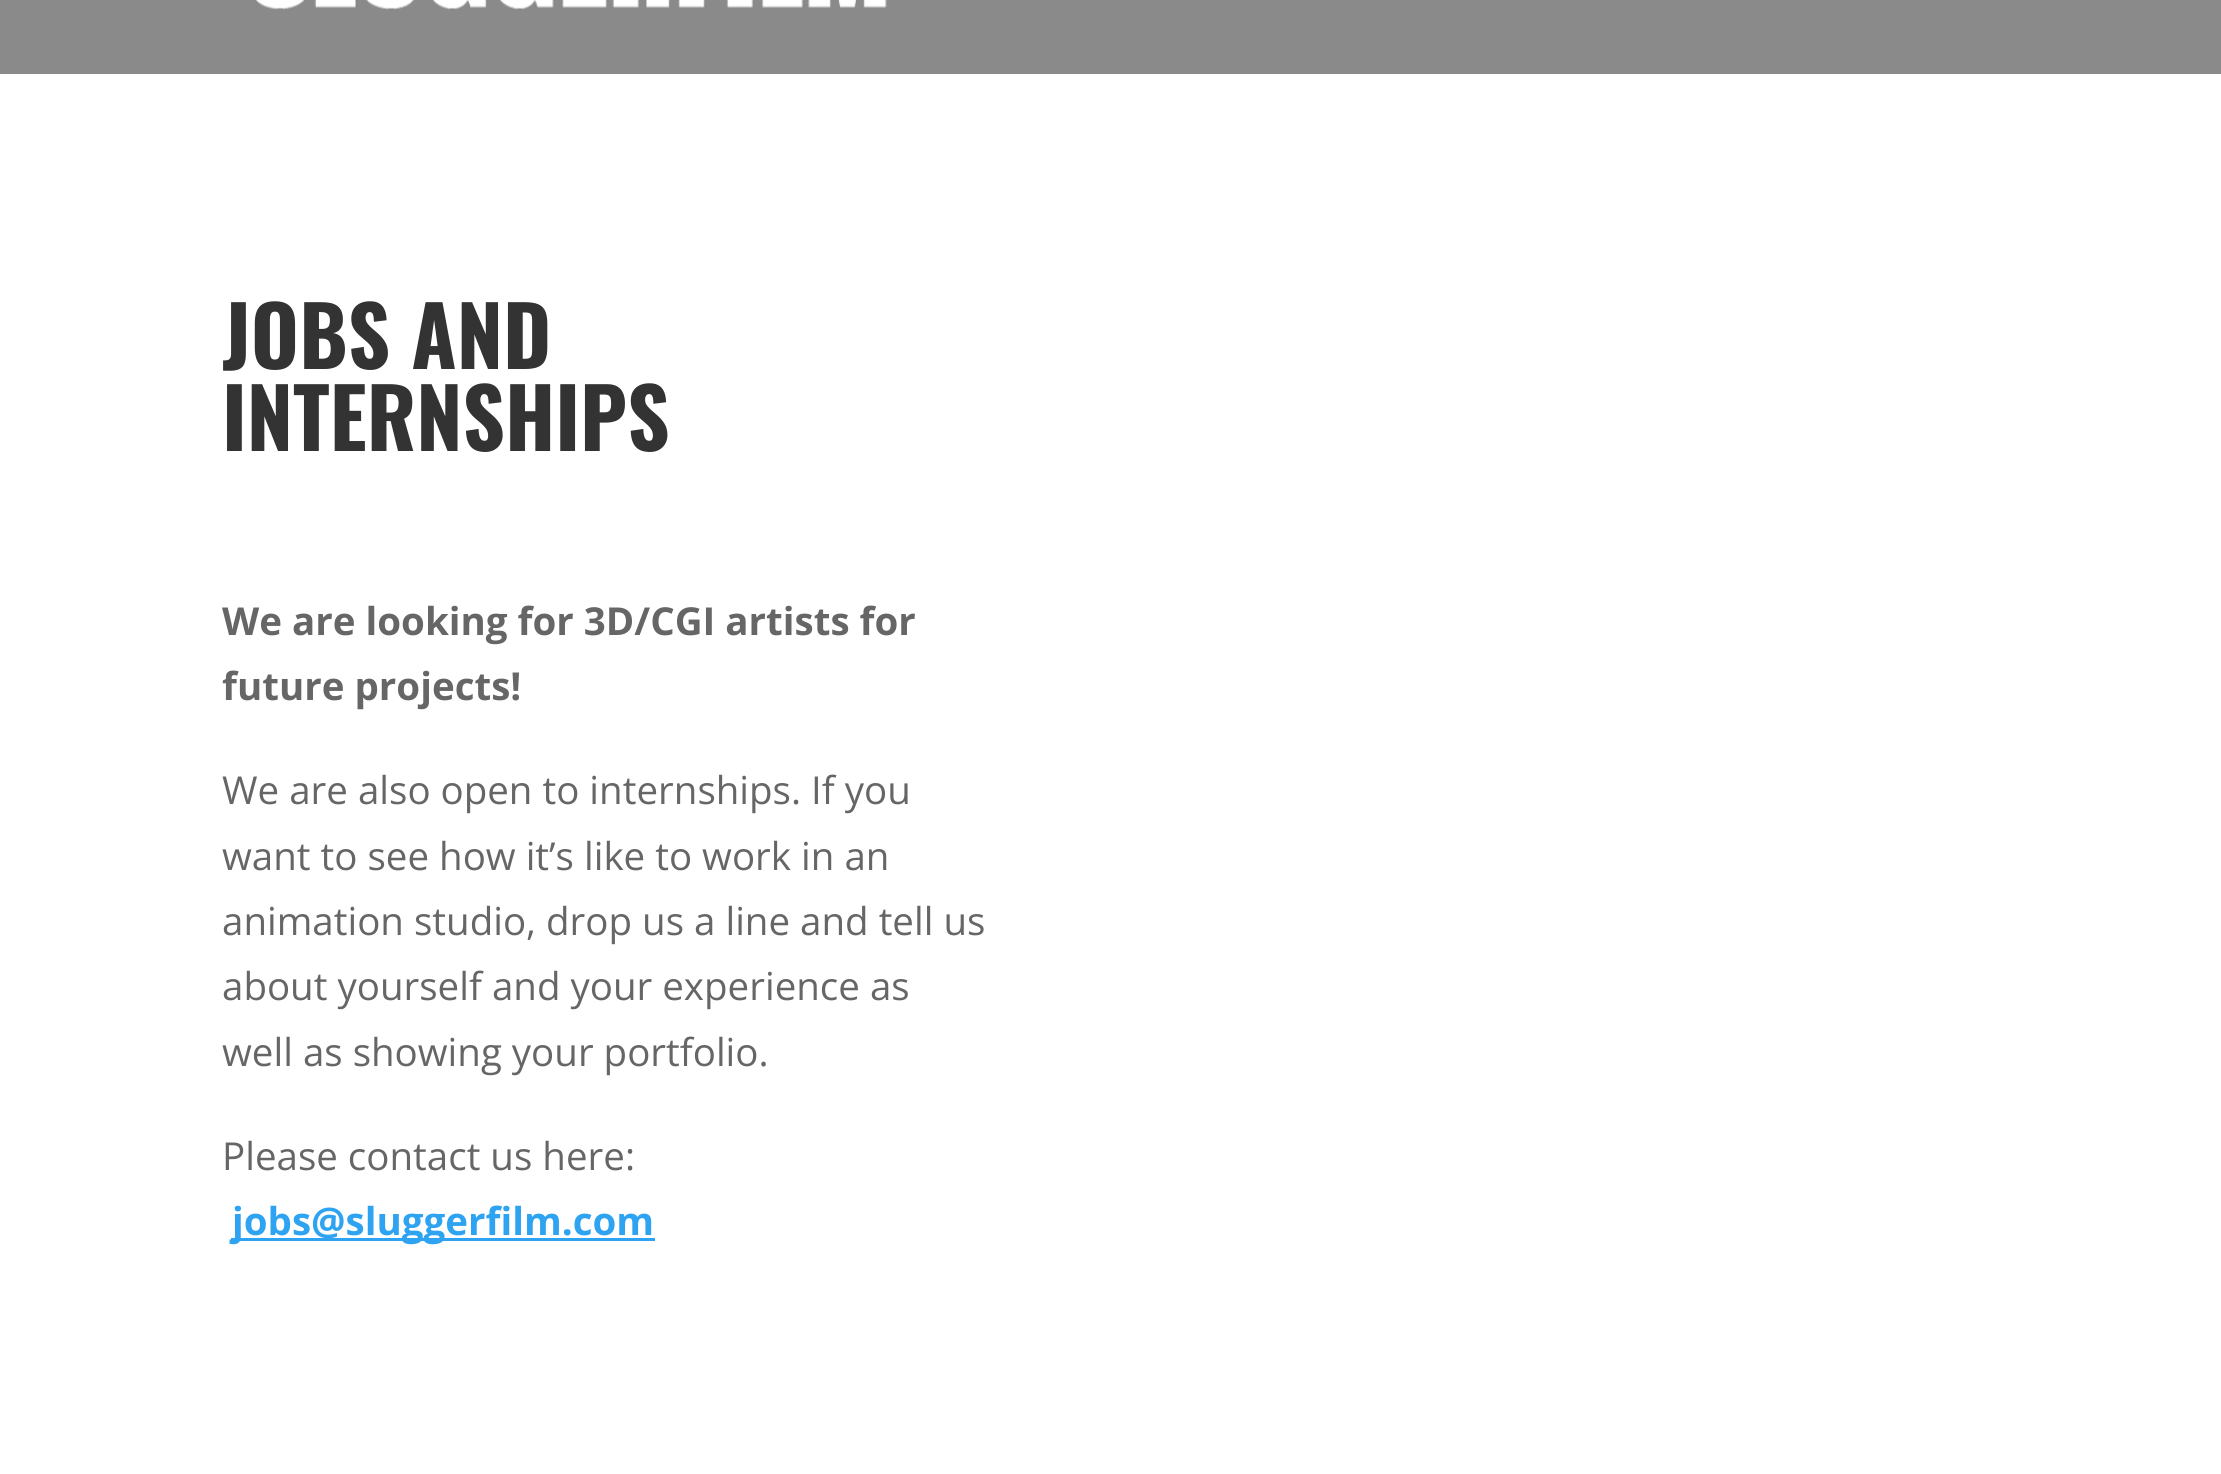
import math
import cairo

surface = cairo.ImageSurface(cairo.FORMAT_RGB24, 2221, 1474)
c = cairo.Context(surface)
options = cairo.FontOptions()
options.set_hint_metrics(cairo.HINT_METRICS_OFF)
options.set_hint_style(cairo.HINT_STYLE_NONE)
c.set_font_options(options)
c.set_miter_limit(4)
def C(code):
 c.set_source_rgb(*(v / 255 for v in bytes.fromhex(code[-6:])))
def F(family, size, italic, bold):
 c.select_font_face(family, cairo.FONT_SLANT_ITALIC if italic else cairo.FONT_SLANT_NORMAL, cairo.FONT_WEIGHT_BOLD if bold else cairo.FONT_WEIGHT_NORMAL)
 c.set_font_size(size)
def T(x, y, s):
 c.move_to(x, y)
 c.show_text(s)
def R(x, y, w, h):
 c.rectangle(x, y, w, h)
 c.fill()
def I(path, x, y, w, h):
 c.save()
 c.set_source_surface(cairo.ImageSurface.create_from_png(path), x, y)
 c.rectangle(x, y, w, h)
 c.fill()
 c.restore()
C('ffffff')
c.paint()
C('8a8a8a')
R(0,0,2221,74)
I('1.png',256,0,631,10)
F('Oswald',82.5,0,1)
C('333333')
T(222,369,'JOBS AND')
T(222,451,'INTERNSHIPS')
F('Open Sans',38.5,0,1)
C('666666')
T(222,635,'We are looking for 3D/CGI artists for')
T(222,700,'future projects!')
F('Open Sans',38.5,0,0)
T(222,804,'We are also open to internships. If you')
T(222,870,'want to see how it’s like to work in an')
T(222,935,'animation studio, drop us a line and tell us')
T(222,1000,'about yourself and your experience as')
T(222,1066,'well as showing your portfolio.')
T(222,1170,'Please contact us here:')
C('2ea3f2')
R(231,1238,424,3)
F('Open Sans',38.5,0,1)
T(232,1235,'jobs@sluggerfilm.com')
surface.write_to_png('o.png')
